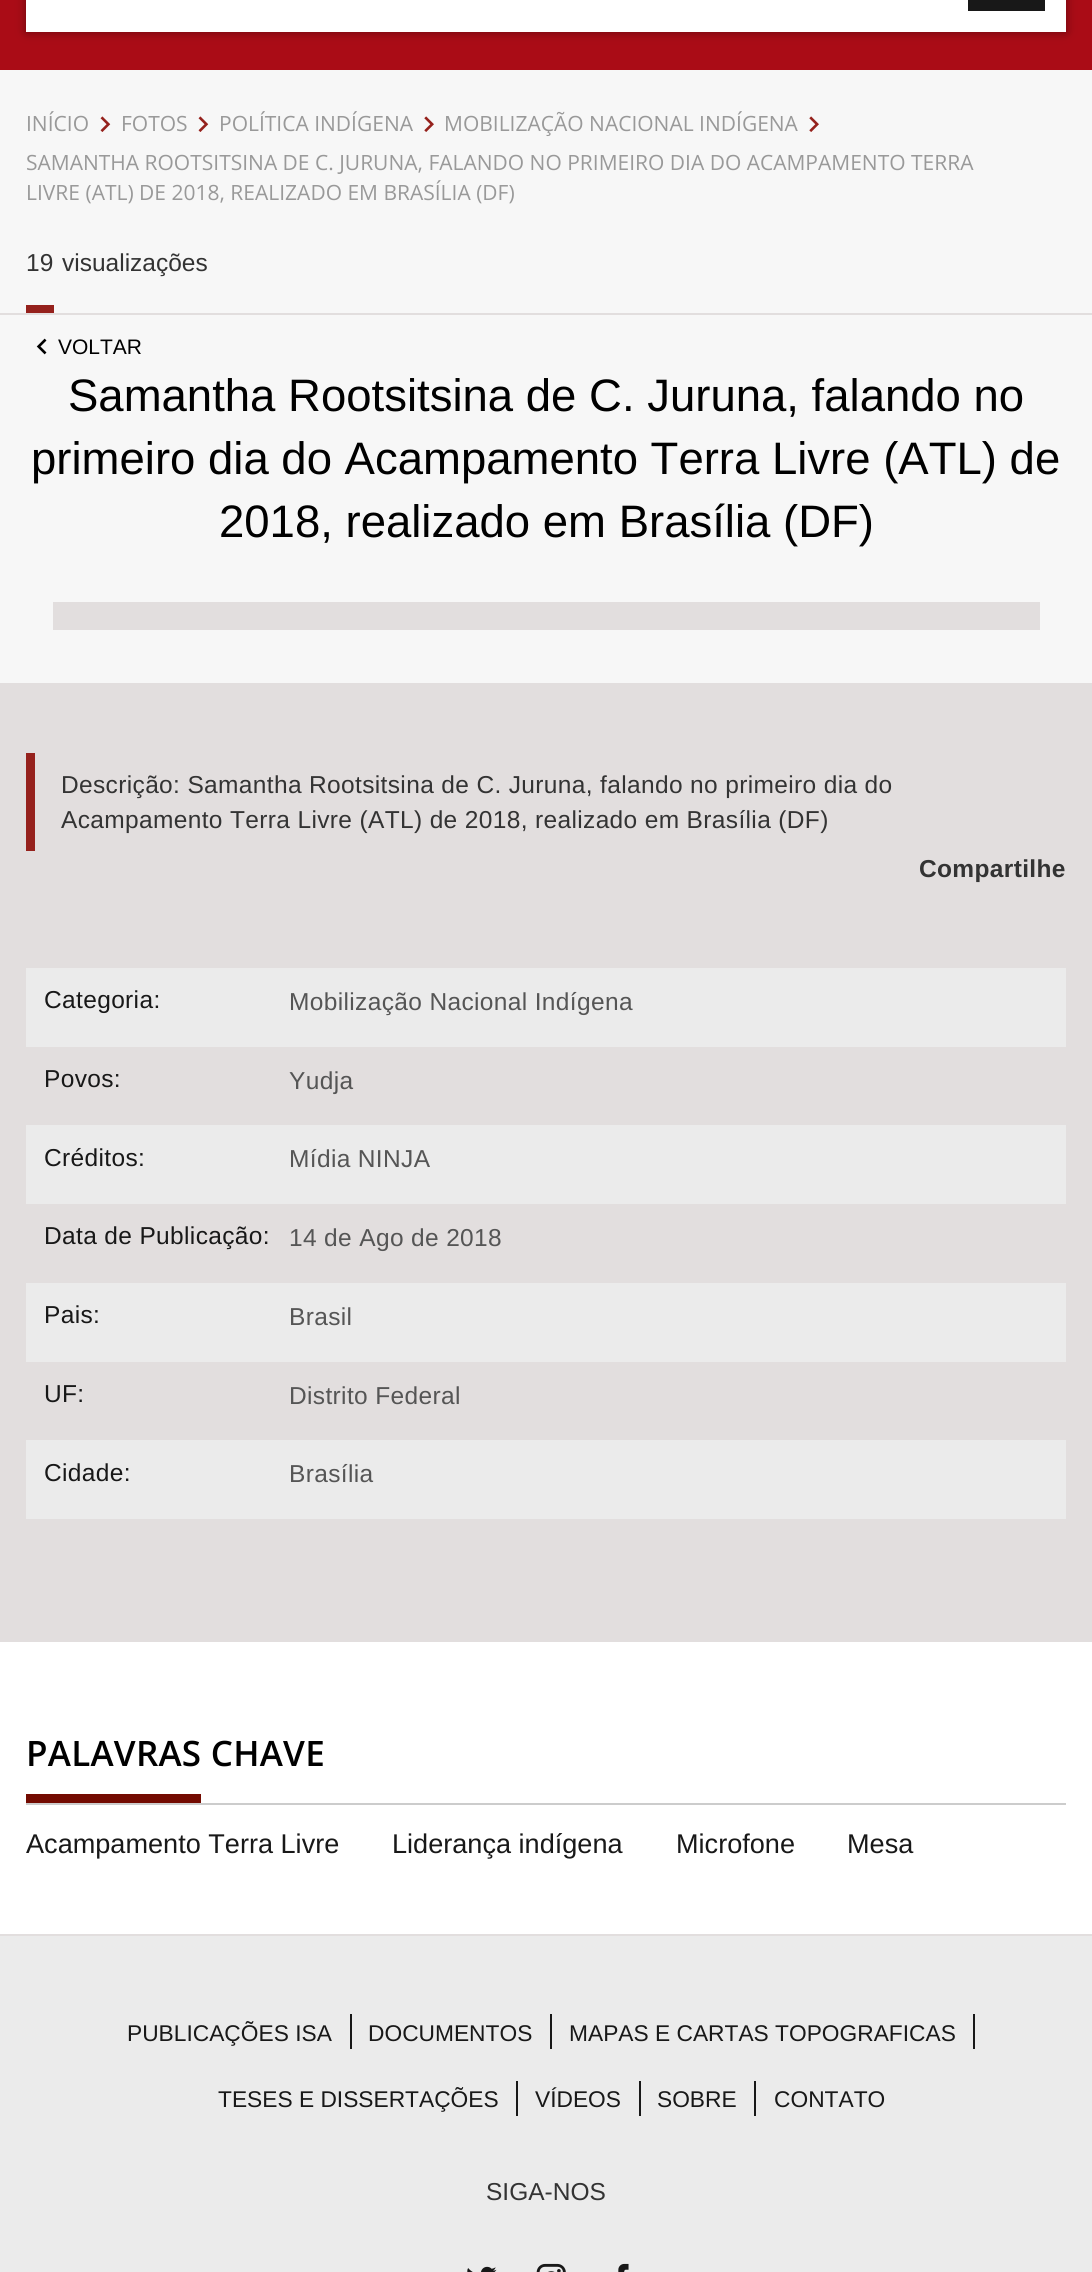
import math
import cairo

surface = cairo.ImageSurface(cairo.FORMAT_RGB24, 1092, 2272)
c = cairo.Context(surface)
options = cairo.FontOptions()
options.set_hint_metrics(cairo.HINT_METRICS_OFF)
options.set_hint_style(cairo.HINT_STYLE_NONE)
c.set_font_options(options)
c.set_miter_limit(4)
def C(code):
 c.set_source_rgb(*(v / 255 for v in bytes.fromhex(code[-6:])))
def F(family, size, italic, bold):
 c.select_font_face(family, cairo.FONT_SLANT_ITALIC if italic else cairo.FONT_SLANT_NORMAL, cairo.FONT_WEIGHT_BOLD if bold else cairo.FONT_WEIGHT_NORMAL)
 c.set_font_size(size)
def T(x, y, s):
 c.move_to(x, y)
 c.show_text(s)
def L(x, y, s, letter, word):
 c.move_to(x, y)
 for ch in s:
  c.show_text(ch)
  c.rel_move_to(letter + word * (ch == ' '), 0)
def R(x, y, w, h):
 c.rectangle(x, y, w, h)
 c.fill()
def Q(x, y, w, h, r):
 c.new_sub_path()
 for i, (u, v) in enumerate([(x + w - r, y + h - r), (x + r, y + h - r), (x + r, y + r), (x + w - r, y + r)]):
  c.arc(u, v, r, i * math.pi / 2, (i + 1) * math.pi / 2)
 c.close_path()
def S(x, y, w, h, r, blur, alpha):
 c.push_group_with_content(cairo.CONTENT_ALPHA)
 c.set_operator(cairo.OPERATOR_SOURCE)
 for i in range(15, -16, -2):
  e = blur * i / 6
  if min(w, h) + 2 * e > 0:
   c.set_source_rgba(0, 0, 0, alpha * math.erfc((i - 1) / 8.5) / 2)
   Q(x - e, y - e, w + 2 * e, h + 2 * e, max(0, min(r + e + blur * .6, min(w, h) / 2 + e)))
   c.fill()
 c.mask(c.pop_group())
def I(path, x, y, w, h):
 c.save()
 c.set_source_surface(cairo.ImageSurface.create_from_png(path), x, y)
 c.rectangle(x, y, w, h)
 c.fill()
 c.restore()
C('aa0c16')
c.paint()
C('000000')
S(26,-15,1040,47,0,5,.4)
C('ffffff')
R(26,0,1040,32)
C('181818')
R(968,0,77,11)
C('ffffff')
R(0,1642,1092,292)
C('f7f7f7')
R(0,70,1092,613)
F('Open Sans',21,0,0)
C('999999')
T(26,131,'INÍCIO')
I('1.png',100,116,11,16)
T(121,131,'FOTOS')
I('1.png',198,116,11,16)
T(219,131,'POLÍTICA INDÍGENA')
I('2.png',424,116,10,16)
T(444,131,'MOBILIZAÇÃO NACIONAL INDÍGENA')
I('2.png',809,116,10,16)
T(26,170,'SAMANTHA ROOTSITSINA DE C. JURUNA, FALANDO NO PRIMEIRO DIA DO ACAMPAMENTO TERRA')
T(26,200,'LIVRE (ATL) DE 2018, REALIZADO EM BRASÍLIA (DF)')
C('95211c')
R(26,305,28,8)
F('Liberation Sans',24.5,0,0)
C('333333')
T(26,271,'19')
T(62,271,'visualizações')
C('e2dede')
R(0,313,1092,2)
I('3.png',36,338,11,17)
F('Liberation Sans',21,0,0)
C('000000')
T(58,354,'VOLTAR')
F('Liberation Sans',45.5,0,0)
T(68,411,'Samantha Rootsitsina de C. Juruna, falando no')
T(31,474,'primeiro dia do Acampamento Terra Livre (ATL) de')
T(219,537,'2018, realizado em Brasília (DF)')
C('e2dede')
R(53,602,987,28)
R(0,683,1092,959)
C('95211c')
R(26,753,9,98)
F('Liberation Sans',24.5,0,0)
C('333333')
L(61,793,'Descrição: Samantha Rootsitsina de C. Juruna, falando no primeiro dia do',.35,0)
L(61,828,'Acampamento Terra Livre (ATL) de 2018, realizado em Brasília (DF)',.35,0)
F('Liberation Sans',24.5,0,1)
L(919,877,'Compartilhe',.35,0)
C('ebebeb')
R(26,968,1040,79)
F('Liberation Sans',24.5,0,0)
C('181818')
L(44,1008,'Categoria:',.35,0)
C('555555')
L(289,1010,'Mobilização Nacional Indígena',.35,0)
C('181818')
L(44,1087,'Povos:',.35,0)
C('555555')
L(289,1089,'Yudja',.35,0)
C('ebebeb')
R(26,1125,1040,79)
C('181818')
L(44,1166,'Créditos:',.35,0)
C('555555')
L(289,1167,'Mídia NINJA',.35,0)
C('181818')
L(44,1244,'Data de Publicação:',.35,0)
C('555555')
L(289,1246,'14 de Ago de 2018',.35,0)
C('ebebeb')
R(26,1283,1040,79)
C('181818')
L(44,1323,'Pais:',.35,0)
C('555555')
L(289,1325,'Brasil',.35,0)
C('181818')
L(44,1402,'UF:',.35,0)
C('555555')
L(289,1404,'Distrito Federal',.35,0)
C('ebebeb')
R(26,1440,1040,79)
C('181818')
L(44,1481,'Cidade:',.35,0)
C('555555')
L(289,1482,'Brasília',.35,0)
F('Open Sans SemiBold',35,0,0)
C('000000')
L(26,1766,'PALAVRAS CHAVE',.25,0)
C('cccccc')
R(26,1803,1040,2)
C('730b01')
R(26,1794,175,9)
F('Liberation Sans',27.1,0,0)
C('181818')
T(26,1853,'Acampamento Terra Livre')
T(392,1853,'Liderança indígena')
T(676,1853,'Microfone')
T(847,1853,'Mesa')
C('ebebeb')
R(0,1936,1092,336)
C('e2dede')
R(0,1934,1092,2)
C('181818')
R(350,2014,2,35)
F('Liberation Sans',22.75,0,0)
T(127,2041,'PUBLICAÇÕES ISA')
R(550,2014,2,35)
T(368,2041,'DOCUMENTOS')
R(973,2014,2,35)
T(569,2041,'MAPAS E CARTAS TOPOGRAFICAS')
R(516,2081,2,35)
T(218,2107,'TESES E DISSERTAÇÕES')
R(639,2081,2,35)
T(535,2107,'VÍDEOS')
R(754,2081,2,35)
T(657,2107,'SOBRE')
T(774,2107,'CONTATO')
F('Liberation Sans',24.5,0,0)
C('333333')
T(486,2200,'SIGA-NOS')
I('4.png',467,2266,30,6)
I('5.png',536,2263,30,9)
I('6.png',618,2263,11,9)
surface.write_to_png('o.png')
